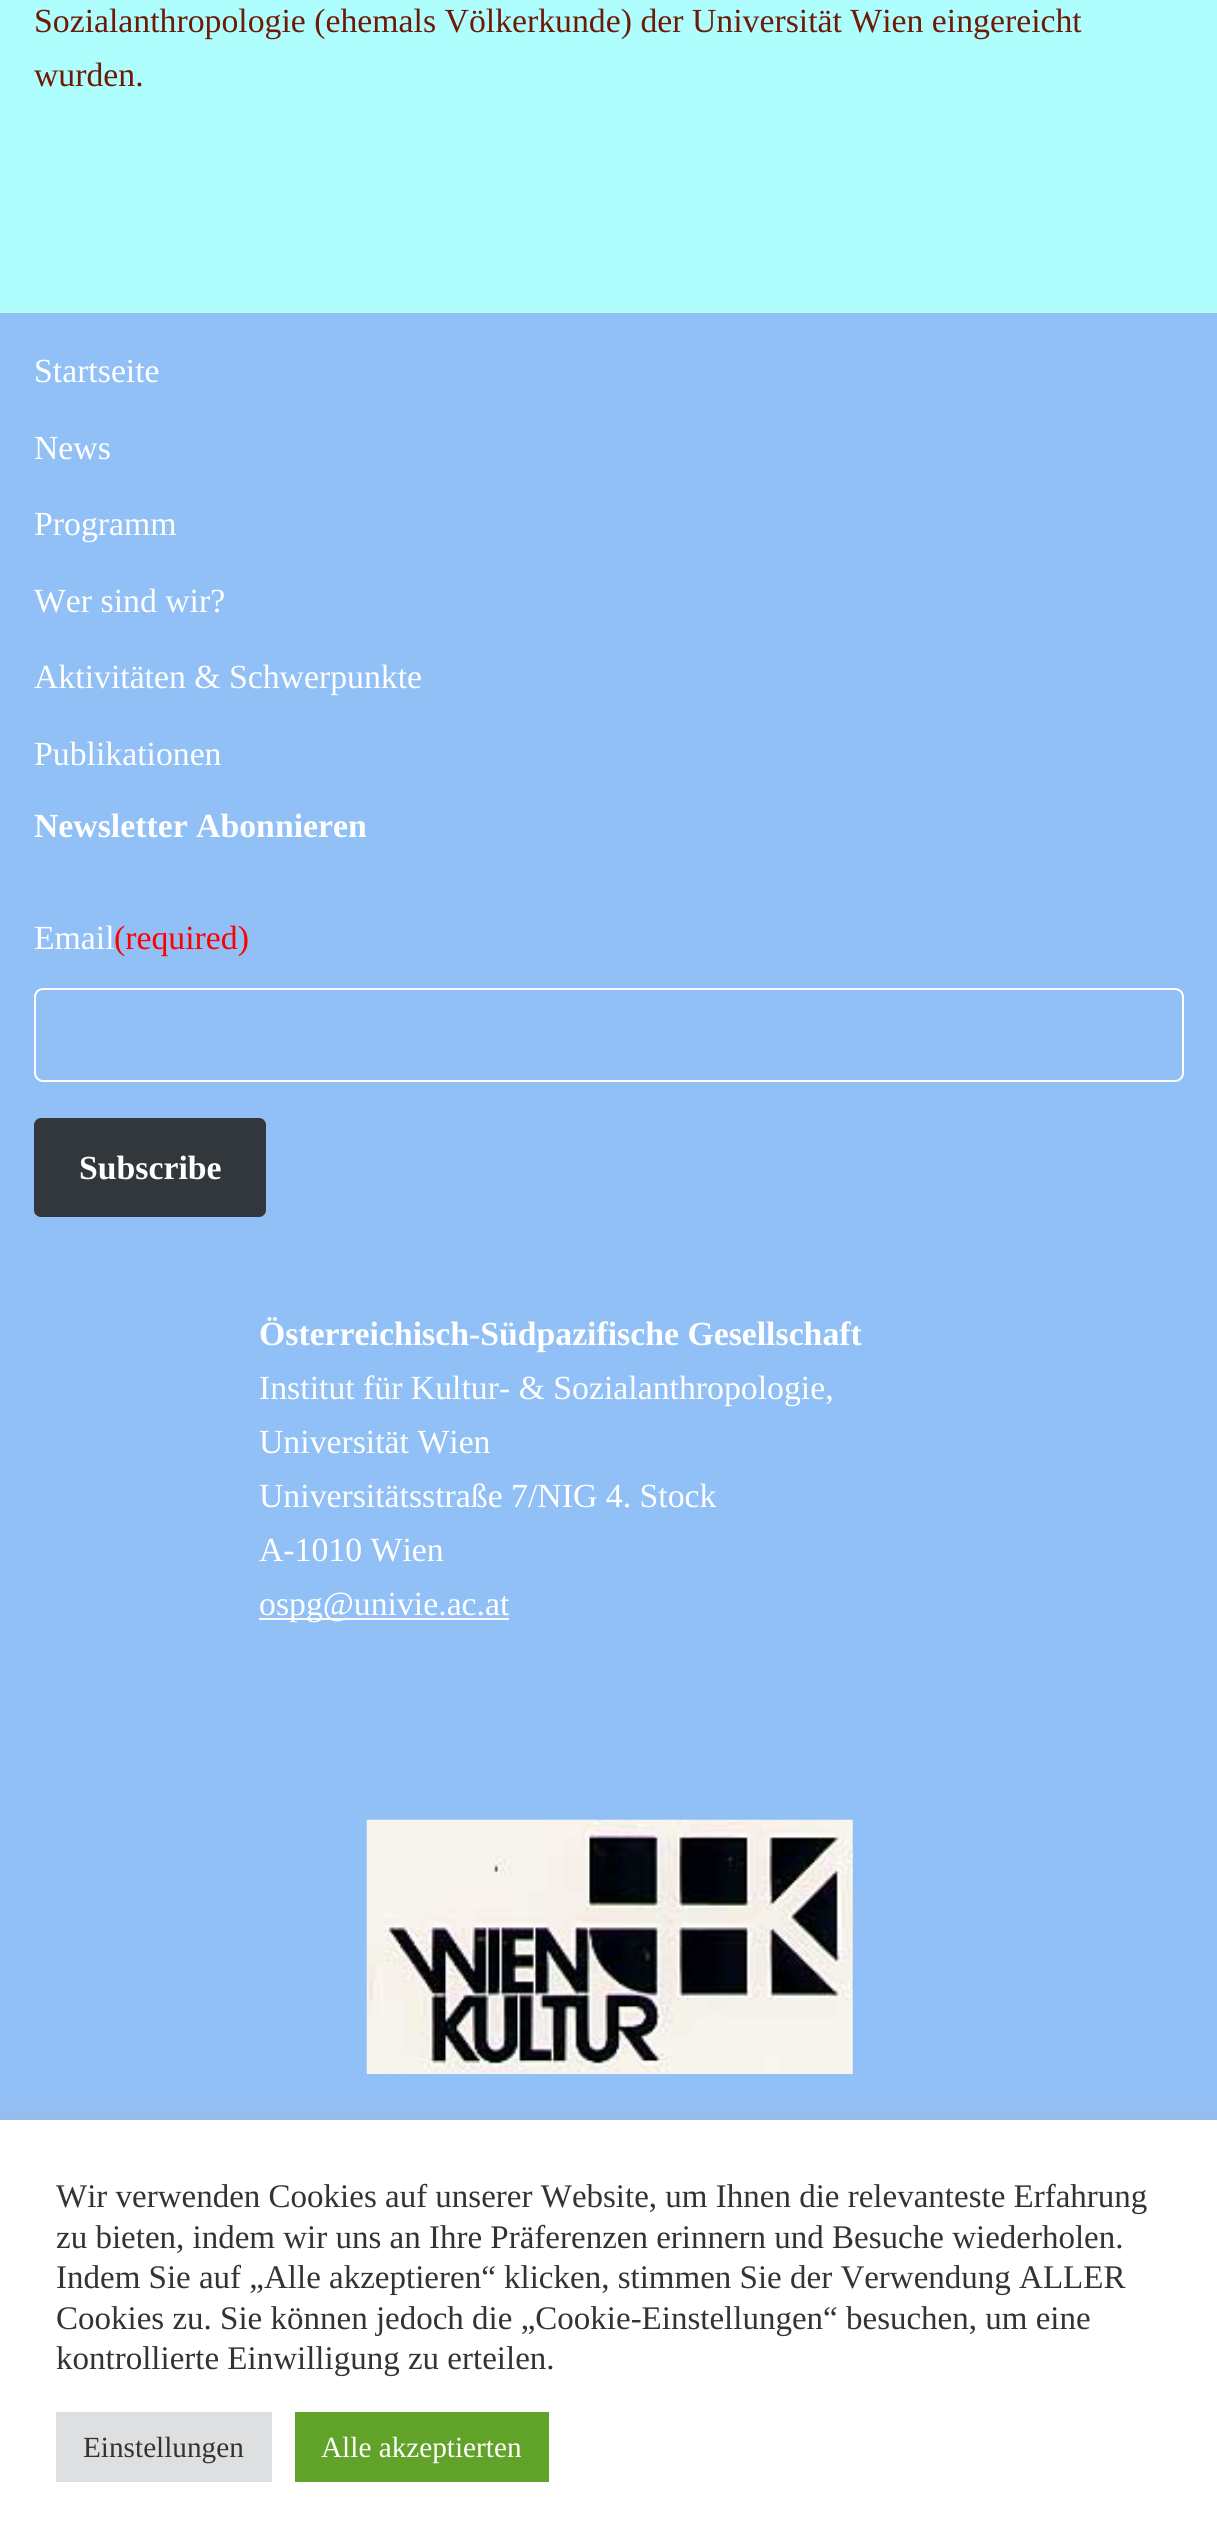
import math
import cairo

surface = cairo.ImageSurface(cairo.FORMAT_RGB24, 1217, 2548)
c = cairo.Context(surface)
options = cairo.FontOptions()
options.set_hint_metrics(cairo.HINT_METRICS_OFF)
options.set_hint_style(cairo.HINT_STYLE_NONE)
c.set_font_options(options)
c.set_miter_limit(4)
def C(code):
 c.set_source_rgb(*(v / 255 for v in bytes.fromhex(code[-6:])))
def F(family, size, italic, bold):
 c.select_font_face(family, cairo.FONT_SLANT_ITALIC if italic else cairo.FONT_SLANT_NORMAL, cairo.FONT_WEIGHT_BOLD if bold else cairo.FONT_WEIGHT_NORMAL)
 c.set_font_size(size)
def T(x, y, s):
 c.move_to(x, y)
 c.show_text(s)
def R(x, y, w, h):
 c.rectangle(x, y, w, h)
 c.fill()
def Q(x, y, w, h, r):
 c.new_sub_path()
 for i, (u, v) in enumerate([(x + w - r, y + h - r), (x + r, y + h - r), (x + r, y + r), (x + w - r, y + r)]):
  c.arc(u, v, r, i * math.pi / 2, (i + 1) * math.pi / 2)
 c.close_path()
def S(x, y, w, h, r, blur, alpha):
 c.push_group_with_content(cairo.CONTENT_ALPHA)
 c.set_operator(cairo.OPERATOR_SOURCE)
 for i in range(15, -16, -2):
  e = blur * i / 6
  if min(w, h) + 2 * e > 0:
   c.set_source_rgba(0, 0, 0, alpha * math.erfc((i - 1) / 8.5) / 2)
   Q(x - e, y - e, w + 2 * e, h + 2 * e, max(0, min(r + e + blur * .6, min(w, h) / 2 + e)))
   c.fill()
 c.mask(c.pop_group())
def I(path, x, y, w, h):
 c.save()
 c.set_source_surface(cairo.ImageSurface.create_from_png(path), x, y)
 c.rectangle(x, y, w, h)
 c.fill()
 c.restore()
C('adfefc')
c.paint()
F('Liberation Serif',33.75,0,0)
C('6f1a07')
T(34,32,'Sozialanthropologie (ehemals Völkerkunde) der Universität Wien eingereicht')
T(34,86,'wurden.')
C('91c0f6')
R(0,313,1217,1807)
C('ffffff')
T(34,382,'Startseite')
T(34,459,'News')
T(34,535,'Programm')
T(34,612,'Wer sind wir?')
T(34,688,'Aktivitäten & Schwerpunkte')
T(34,765,'Publikationen')
F('Liberation Serif',33.75,0,1)
T(34,837,'Newsletter Abonnieren')
F('Liberation Serif',33.75,0,0)
T(34,949,'Email')
C('ff0000')
T(114,949,'(required)')
Q(35,989,1148,92,8)
C('ffffff')
c.stroke()
C('32373c')
Q(34,1118,232,99,7)
c.fill()
F('Liberation Serif',33.75,0,1)
C('ffffff')
T(79,1179,'Subscribe')
T(259,1345,'Österreichisch-Südpazifische Gesellschaft')
F('Liberation Serif',33.75,0,0)
T(259,1399,'Institut für Kultur- & Sozialanthropologie,')
T(259,1453,'Universität Wien')
T(259,1507,'Universitätsstraße 7/NIG 4. Stock')
T(259,1561,'A-1010 Wien')
R(259,1618,250,2)
T(259,1615,'ospg@univie.ac.at')
I('1.png',366,1819,487,255)
C('acabab')
S(0,2117,1217,430,0,11,.3)
C('ffffff')
R(0,2120,1217,428)
F('Liberation Serif',33,0,0)
C('333333')
T(56,2207,'Wir verwenden Cookies auf unserer Website, um Ihnen die relevanteste Erfahrung')
T(56,2248,'zu bieten, indem wir uns an Ihre Präferenzen erinnern und Besuche wiederholen.')
T(56,2288,'Indem Sie auf „Alle akzeptieren“ klicken, stimmen Sie der Verwendung ALLER')
T(56,2329,'Cookies zu. Sie können jedoch die „Cookie-Einstellungen“ besuchen, um eine')
T(56,2369,'kontrollierte Einwilligung zu erteilen.')
C('dedfe0')
R(56,2412,216,70)
F('Liberation Serif',29.25,0,0)
C('333333')
T(83,2457,'Einstellungen')
C('61a229')
R(295,2412,254,70)
C('ffffff')
T(321,2457,'Alle akzeptierten')
surface.write_to_png('o.png')
